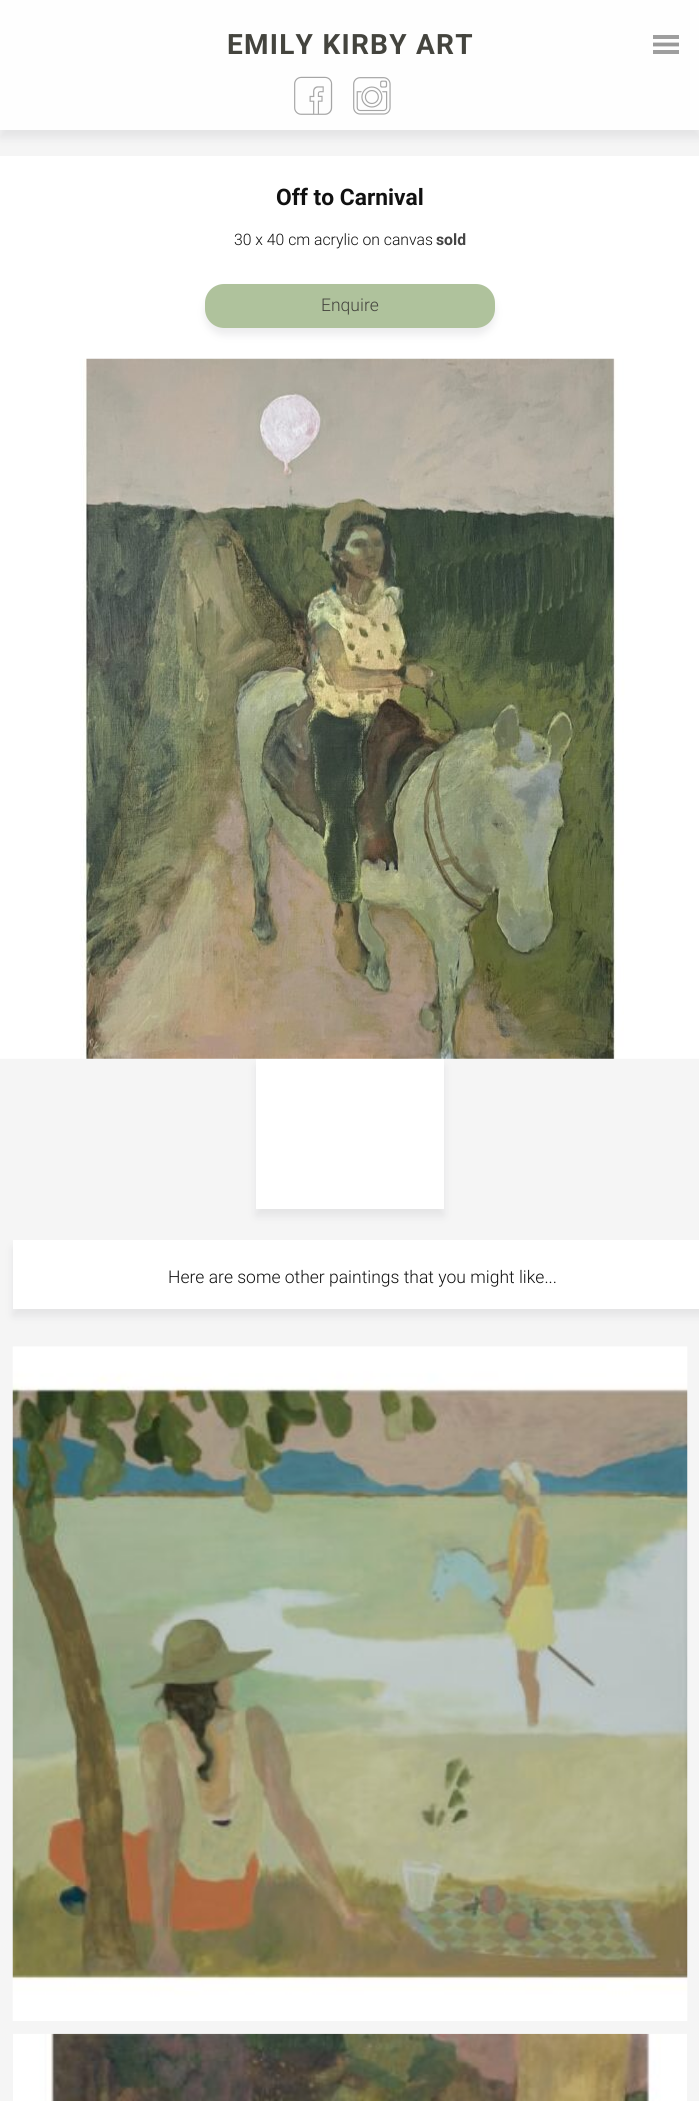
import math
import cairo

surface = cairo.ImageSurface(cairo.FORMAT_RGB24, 699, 2101)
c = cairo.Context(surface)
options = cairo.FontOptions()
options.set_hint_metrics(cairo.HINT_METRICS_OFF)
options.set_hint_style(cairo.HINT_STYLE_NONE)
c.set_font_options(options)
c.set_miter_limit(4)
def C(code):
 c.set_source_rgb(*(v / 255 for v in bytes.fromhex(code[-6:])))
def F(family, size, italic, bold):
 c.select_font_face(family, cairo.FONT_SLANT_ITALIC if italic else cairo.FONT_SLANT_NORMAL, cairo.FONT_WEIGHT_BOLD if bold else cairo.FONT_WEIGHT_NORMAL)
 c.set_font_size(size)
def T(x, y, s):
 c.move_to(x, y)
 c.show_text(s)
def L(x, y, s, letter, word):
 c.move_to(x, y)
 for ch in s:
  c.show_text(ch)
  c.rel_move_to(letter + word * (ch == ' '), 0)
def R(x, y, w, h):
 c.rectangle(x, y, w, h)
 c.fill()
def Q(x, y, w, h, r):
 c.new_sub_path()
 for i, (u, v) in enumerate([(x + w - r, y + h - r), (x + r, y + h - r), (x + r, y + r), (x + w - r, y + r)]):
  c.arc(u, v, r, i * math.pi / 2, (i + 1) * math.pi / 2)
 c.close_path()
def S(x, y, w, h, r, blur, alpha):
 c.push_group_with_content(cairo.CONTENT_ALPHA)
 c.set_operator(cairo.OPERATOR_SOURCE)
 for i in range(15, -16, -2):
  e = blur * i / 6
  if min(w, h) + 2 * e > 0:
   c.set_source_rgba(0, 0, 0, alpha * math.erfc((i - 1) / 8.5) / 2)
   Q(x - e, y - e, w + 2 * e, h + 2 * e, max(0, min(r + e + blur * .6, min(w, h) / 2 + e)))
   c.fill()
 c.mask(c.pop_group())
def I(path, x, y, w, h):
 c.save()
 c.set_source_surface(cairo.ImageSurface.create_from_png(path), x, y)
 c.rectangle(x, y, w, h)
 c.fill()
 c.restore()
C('f5f5f5')
c.paint()
C('b3b3b8')
S(0,8,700,130,0,4,.25)
C('fefefe')
R(0,0,699,130)
F('Roboto',28,0,1)
C('44443e')
L(227,54,'EMILY KIRBY ART',1.25,0)
C('9e9e9e')
R(653,35,26,4)
c.save()
c.rectangle(653,31,30,27)
c.clip()
c.new_path()
c.move_to(652.5,44.5)
c.line_to(679,44.5)
C('999999')
c.set_line_width(3.8)
c.set_line_join(cairo.LINE_JOIN_BEVEL)
c.stroke()
c.restore()
R(653,50,26,4)
I('1.png',294,76,39,39)
I('2.png',353,77,38,38)
C('ffffff')
R(0,156,699,203)
F('Roboto',22.75,0,1)
C('111111')
T(276,205,'Off to Carnival')
F('Roboto Light',15.75,0,0)
T(234,245,'30 x 40 cm acrylic on canvas')
F('Roboto',15.75,0,1)
C('444444')
T(436,245,'sold')
c.save()
c.set_fill_rule(cairo.FILL_RULE_EVEN_ODD)
c.new_path()
c.move_to(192,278)
c.line_to(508,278)
c.line_to(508,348)
c.line_to(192,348)
c.close_path()
c.move_to(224,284)
c.line_to(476,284)
c.curve_to(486.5,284,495,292.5,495,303)
c.line_to(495,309)
c.curve_to(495,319.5,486.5,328,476,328)
c.line_to(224,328)
c.curve_to(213.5,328,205,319.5,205,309)
c.line_to(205,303)
c.curve_to(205,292.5,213.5,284,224,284)
c.close_path()
c.clip()
C('b3b3b8')
S(205,291,290,44,19,4,.25)
c.restore()
c.set_source_rgba(0.376,0.525,0.227,0.5)
Q(205,284,290,44,19)
c.fill()
F('Roboto Light',17.5,0,0)
C('44443e')
T(321,311,'Enquire')
I('3.png',0,358,699,701)
C('b3b3b8')
S(256,1066,188,150,0,4,.25)
C('ffffff')
R(256,1059,188,150)
C('b3b3b8')
S(13,1248,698,68,0,4,.25)
C('ffffff')
R(13,1240,686,69)
C('111111')
T(168,1283,'Here are some other paintings that you might like...')
I('4.png',12,1346,676,675)
I('5.png',13,2033,674,68)
surface.write_to_png('o.png')
